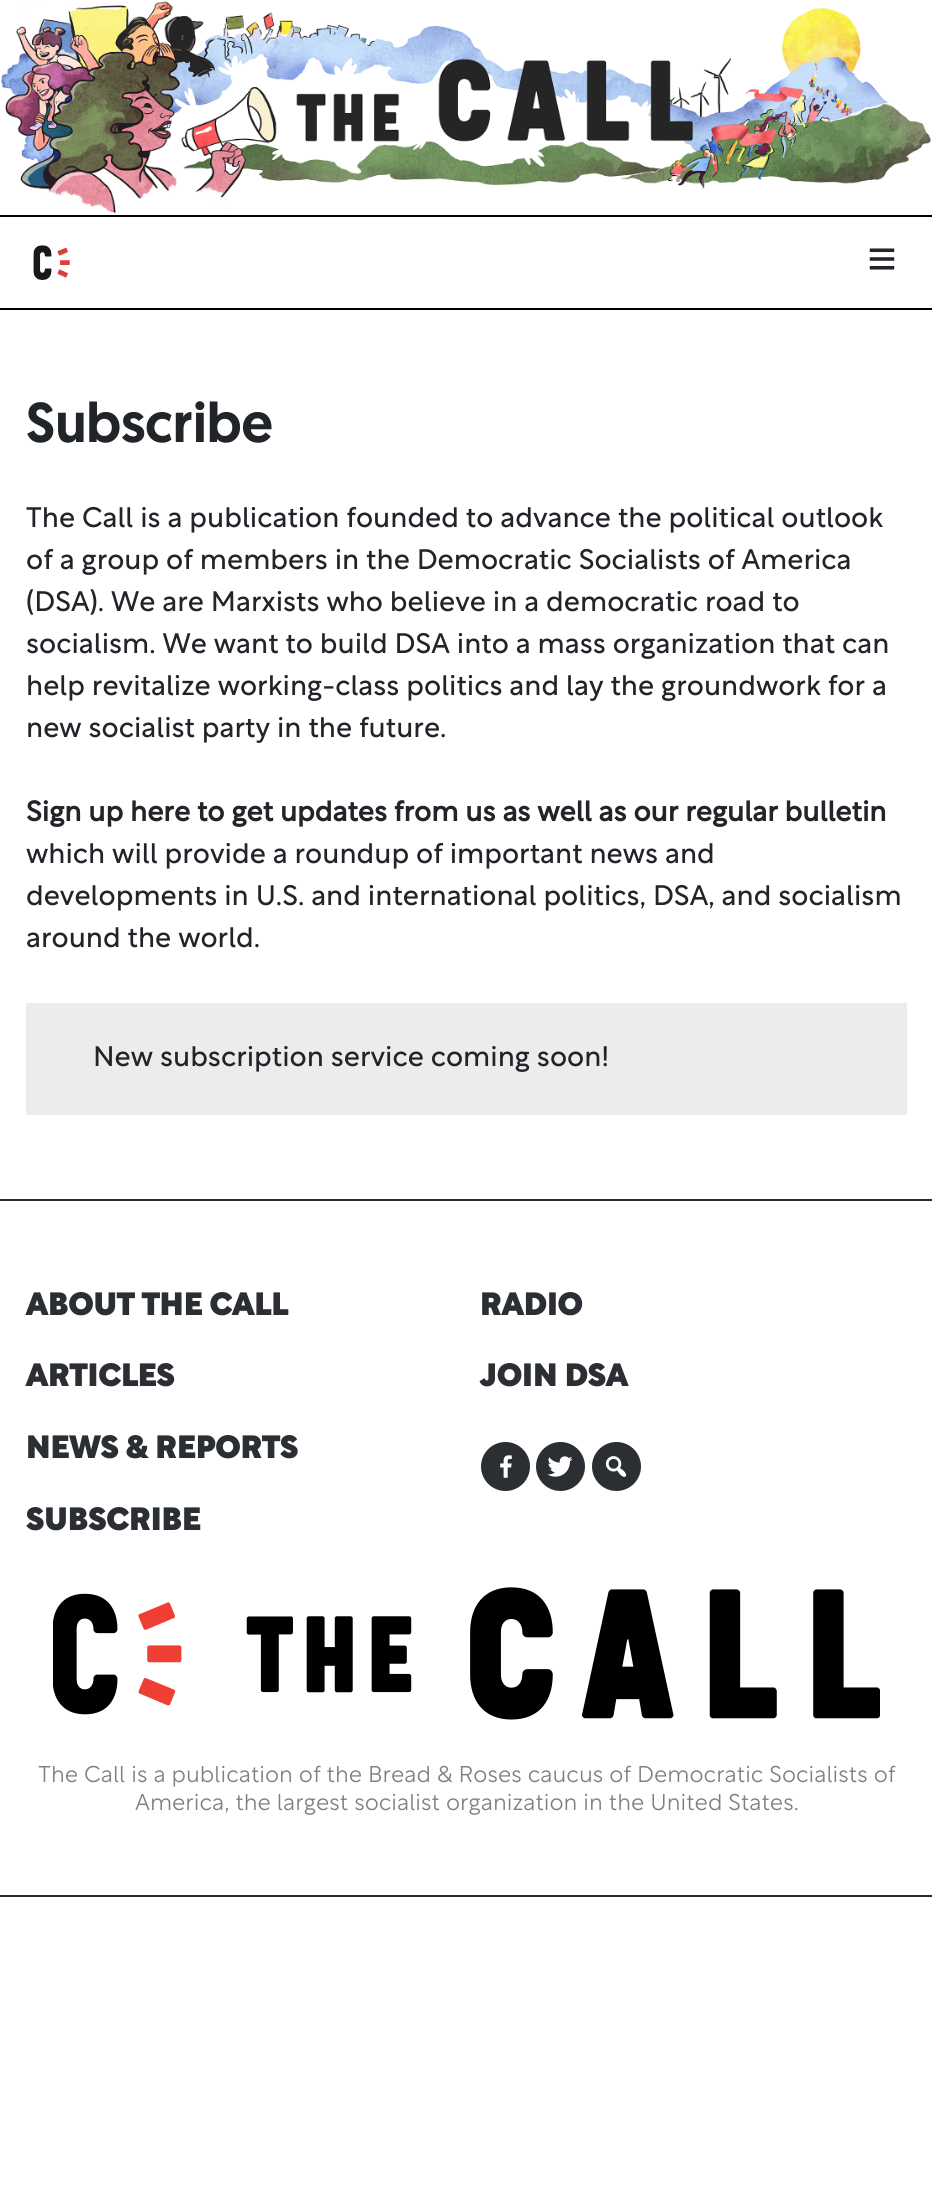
import math
import cairo

surface = cairo.ImageSurface(cairo.FORMAT_RGB24, 932, 2190)
c = cairo.Context(surface)
options = cairo.FontOptions()
options.set_hint_metrics(cairo.HINT_METRICS_OFF)
options.set_hint_style(cairo.HINT_STYLE_NONE)
c.set_font_options(options)
c.set_miter_limit(4)
def C(code):
 c.set_source_rgb(*(v / 255 for v in bytes.fromhex(code[-6:])))
def F(family, size, italic, bold):
 c.select_font_face(family, cairo.FONT_SLANT_ITALIC if italic else cairo.FONT_SLANT_NORMAL, cairo.FONT_WEIGHT_BOLD if bold else cairo.FONT_WEIGHT_NORMAL)
 c.set_font_size(size)
def T(x, y, s):
 c.move_to(x, y)
 c.show_text(s)
def R(x, y, w, h):
 c.rectangle(x, y, w, h)
 c.fill()
def I(path, x, y, w, h):
 c.save()
 c.set_source_surface(cairo.ImageSurface.create_from_png(path), x, y)
 c.rectangle(x, y, w, h)
 c.fill()
 c.restore()
C('ffffff')
c.paint()
I('1.png',1,1,930,213)
C('000000')
R(0,215,932,2)
R(0,308,932,2)
I('2.png',33,245,37,35)
I('3.png',869,248,26,22)
F('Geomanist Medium',56,0,0)
C('212529')
T(26,442,'Subscribe')
F('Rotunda',28,0,0)
T(26,527,'The Call is a publication founded to advance the political outlook')
T(26,569,'of a group of members in the Democratic Socialists of America')
T(26,611,'(DSA). We are Marxists who believe in a democratic road to')
T(26,653,'socialism. We want to build DSA into a mass organization that can')
T(26,695,'help revitalize working-class politics and lay the groundwork for a')
T(26,737,'new socialist party in the future.')
F('Rotunda',28,0,1)
T(26,821,'Sign up here to get updates from us as well as our regular bulletin')
F('Rotunda',28,0,0)
T(26,863,'which will provide a roundup of important news and')
T(26,905,'developments in U.S. and international politics, DSA, and socialism')
T(26,947,'around the world.')
C('ececec')
R(26,1003,881,112)
C('212529')
T(93,1066,'New subscription service coming soon!')
C('2b2f34')
R(0,1199,932,2)
R(0,1895,932,2)
F('Rotunda Black',31.5,0,0)
T(26,1315,'ABOUT THE CALL')
T(480,1315,'RADIO')
T(26,1386,'ARTICLES')
T(480,1386,'JOIN DSA')
T(26,1458,'NEWS & REPORTS')
c.new_path()
c.arc(505.5,1466.5,24.5,0,2 * math.pi)
c.fill()
I('4.png',500,1455,12,23)
c.arc(560.5,1466.5,24.5,0,2 * math.pi)
c.fill()
I('5.png',547,1456,26,21)
c.arc(616.5,1466.5,24.5,0,2 * math.pi)
c.fill()
I('6.png',605,1456,22,21)
T(26,1530,'SUBSCRIBE')
I('7.png',53,1587,827,133)
F('Rotunda Light',22.75,0,0)
C('7e7f81')
T(38,1782,'The Call is a publication of the Bread & Roses caucus of Democratic Socialists of')
T(135,1810,'America, the largest socialist organization in the United States.')
surface.write_to_png('o.png')
